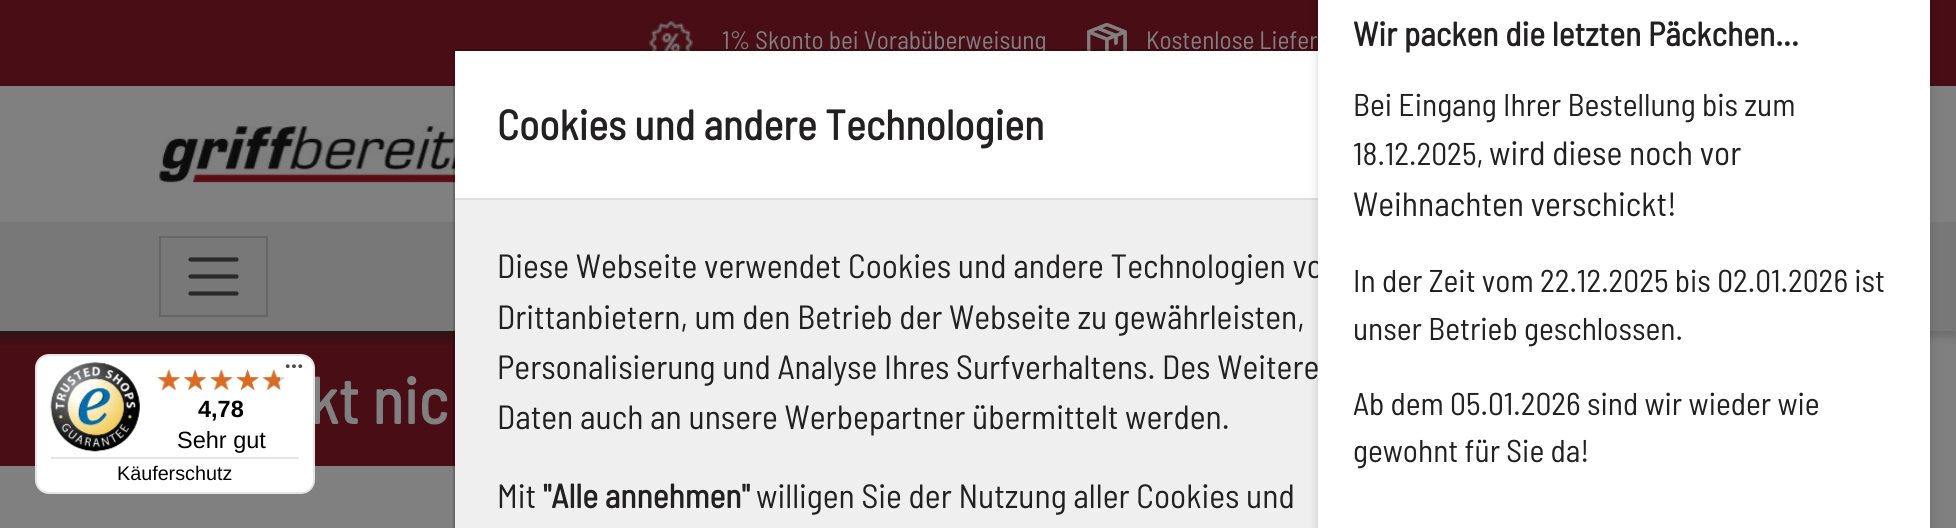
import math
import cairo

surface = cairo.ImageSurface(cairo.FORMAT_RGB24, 1956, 528)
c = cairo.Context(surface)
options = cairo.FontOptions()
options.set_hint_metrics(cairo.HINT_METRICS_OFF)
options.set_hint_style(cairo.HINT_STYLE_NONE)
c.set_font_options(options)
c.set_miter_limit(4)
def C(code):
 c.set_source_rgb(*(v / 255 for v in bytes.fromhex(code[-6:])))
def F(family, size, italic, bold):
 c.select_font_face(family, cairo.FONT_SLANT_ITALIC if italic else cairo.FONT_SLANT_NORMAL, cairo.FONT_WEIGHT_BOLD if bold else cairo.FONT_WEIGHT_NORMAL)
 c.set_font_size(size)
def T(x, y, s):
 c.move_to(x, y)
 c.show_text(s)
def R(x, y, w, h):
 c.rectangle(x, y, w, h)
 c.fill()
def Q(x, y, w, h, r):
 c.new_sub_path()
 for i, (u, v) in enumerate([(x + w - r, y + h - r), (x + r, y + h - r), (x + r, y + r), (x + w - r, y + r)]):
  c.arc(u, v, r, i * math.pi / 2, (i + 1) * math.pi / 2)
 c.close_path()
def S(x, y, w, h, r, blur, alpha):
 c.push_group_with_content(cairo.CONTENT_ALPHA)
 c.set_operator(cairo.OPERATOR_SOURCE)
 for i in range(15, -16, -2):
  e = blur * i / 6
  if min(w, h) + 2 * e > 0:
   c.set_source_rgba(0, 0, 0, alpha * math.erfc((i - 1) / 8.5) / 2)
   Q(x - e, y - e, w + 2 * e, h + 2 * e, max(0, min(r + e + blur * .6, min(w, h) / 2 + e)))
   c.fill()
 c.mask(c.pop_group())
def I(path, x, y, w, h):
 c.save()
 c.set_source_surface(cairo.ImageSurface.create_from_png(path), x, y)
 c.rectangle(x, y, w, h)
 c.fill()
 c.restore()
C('808080')
c.paint()
C('480d15')
R(0,0,1956,86)
I('1.png',649,21,44,30)
F('Barlow Semi Condensed',25.25,0,0)
C('808080')
T(722,49,'1% Skonto bei Vorabüberweisung')
I('2.png',1087,23,40,28)
T(1146,49,'Kostenlose Liefer')
gradient = cairo.LinearGradient(49,149,1908,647)
gradient.add_color_stop_rgba(.6,0.282,0.051,0.082,1)
gradient.add_color_stop_rgba(.6,0.502,0.502,0.502,1)
c.set_source(gradient)
R(0,331,1196,135)
C('000000')
S(0,91,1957,245,0,5,.16)
C('808080')
R(0,86,1956,136)
I('3.png',159,126,296,57)
C('1e1e1e')
S(-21,326,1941,7,0,7,1)
C('787878')
R(0,222,1956,109)
c.rectangle(160,237,107,79)
C('666666')
c.stroke()
c.new_path()
c.move_to(190.5,259.5)
c.line_to(236.5,259.5)
c.move_to(190.5,276.5)
c.line_to(236.5,276.5)
c.move_to(190.5,293.5)
c.line_to(236.5,293.5)
C('2b2a2b')
c.set_line_width(4.2)
c.set_line_cap(cairo.LINE_CAP_ROUND)
c.stroke()
F('Barlow Semi Condensed',65,0,1)
C('808080')
T(309,424,'kt nic')
C('ffffff')
R(455,51,863,147)
c.rectangle(454,50,1048,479)
c.set_source_rgba(0,0,0,0.18)
c.set_line_width(2)
c.set_line_cap(cairo.LINE_CAP_BUTT)
c.stroke()
C('e0dfdf')
R(455,198,863,2)
C('efefef')
R(455,200,863,328)
C('000000')
S(1318,-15,612,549,0,5,.16)
F('Barlow Semi Condensed',33.6,0,0)
C('222021')
T(497,278,'Diese Webseite verwendet Cookies und andere Technologien vo')
C('ffffff')
R(1318,0,612,528)
F('Barlow Semi Condensed',33.6,0,1)
C('222021')
T(1353,46,'Wir packen die letzten Päckchen...')
F('Barlow Semi Condensed',31.5,0,0)
T(1353,116,'Bei Eingang Ihrer Bestellung bis zum')
T(1353,165,'18.12.2025,')
F('Barlow Semi Condensed',33.6,0,0)
T(1489,165,'wird diese noch vor')
T(1353,216,'Weihnachten verschickt!')
F('Barlow Semi Condensed',31.5,0,0)
T(1353,292,'In der Zeit vom 22.12.2025 bis 02.01.2026 ist')
T(1353,340,'unser Betrieb geschlossen.')
T(1353,415,'Ab dem 05.01.2026 sind wir wieder wie')
T(1353,462,'gewohnt für Sie da!')
C('ffffff')
Q(36,355,278,138,13)
c.fill_preserve()
C('e5e5e5')
c.stroke()
I('4.png',285,364,18,4)
I('5.png',50,362,90,90)
I('6.png',157,369,23,22)
I('7.png',184,370,22,20)
I('8.png',210,369,23,21)
I('9.png',236,370,23,20)
I('10.png',262,369,23,22)
I('11.png',157,369,24,22)
I('12.png',184,369,22,22)
I('13.png',210,369,23,22)
I('14.png',236,369,23,22)
I('15.png',262,369,18,22)
F('Liberation Sans',23.5,0,1)
C('000000')
T(198,417,'4,78')
F('Liberation Sans',23.5,0,0)
T(177,448,'Sehr gut')
C('e5e5e5')
R(51,457,248,2)
F('Liberation Sans',19.75,0,0)
C('000000')
T(117,480,'Käuferschutz')
F('Barlow Semi Condensed',42,0,1)
C('222021')
T(497,140,'Cookies und andere Technologien')
F('Barlow Semi Condensed',33.6,0,0)
T(497,329,'Drittanbietern, um den Betrieb der Webseite zu gewährleisten,')
T(497,379,'Personalisierung und Analyse Ihres Surfverhaltens. Des Weitere')
T(497,429,'Daten auch an unsere Werbepartner übermittelt werden.')
T(497,508,'Mit')
F('Barlow Semi Condensed',33.6,0,1)
T(543,508,'"Alle annehmen"')
F('Barlow Semi Condensed',33.6,0,0)
T(756,508,'willigen Sie der Nutzung aller Cookies und')
surface.write_to_png('o.png')
